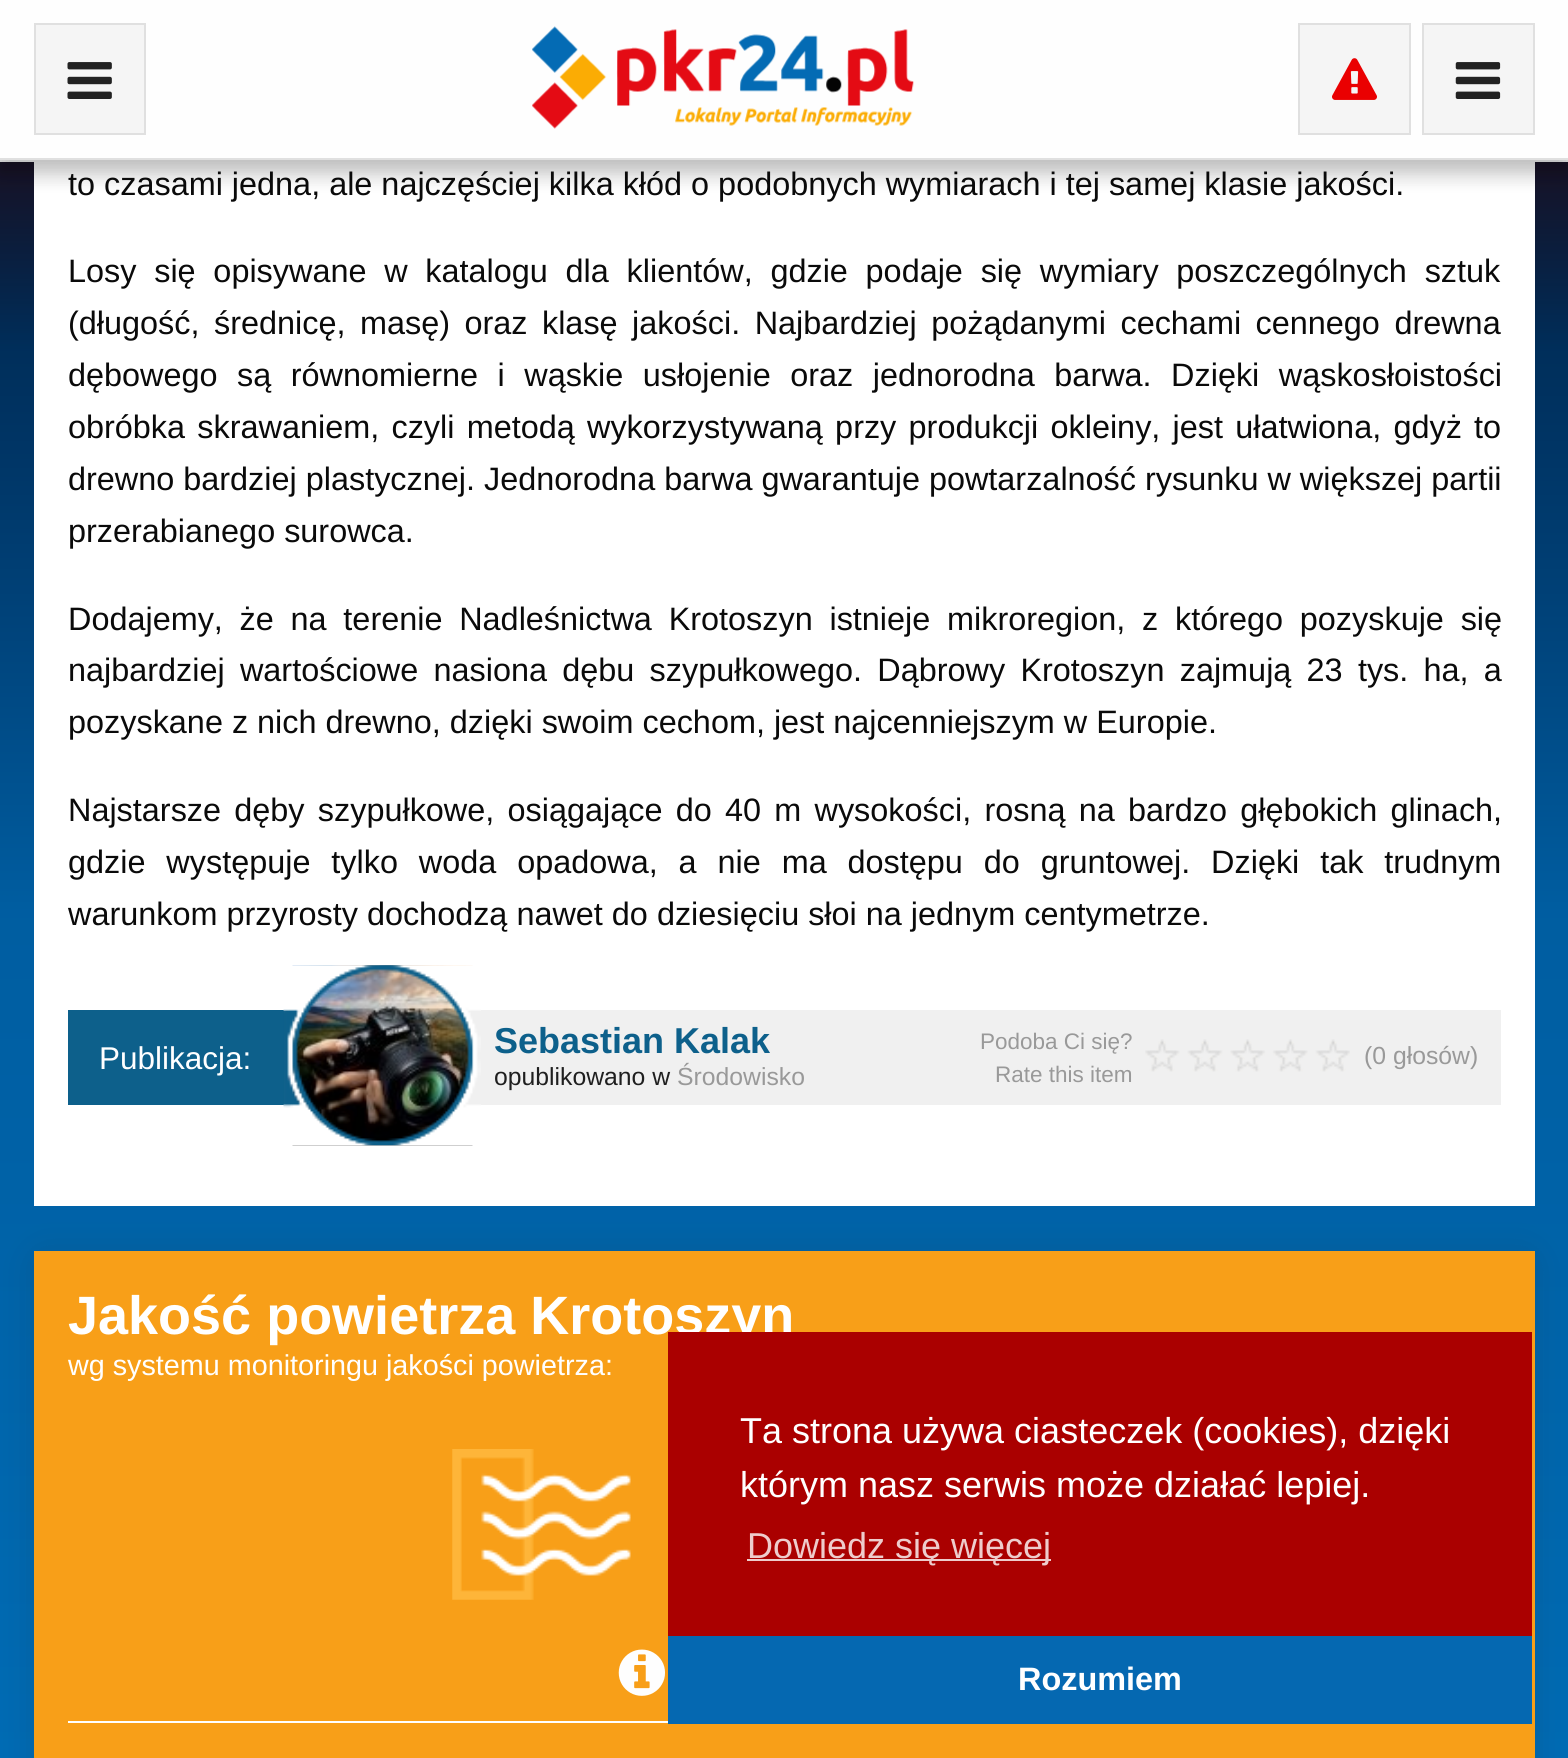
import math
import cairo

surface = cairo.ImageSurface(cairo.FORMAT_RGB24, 1568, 1758)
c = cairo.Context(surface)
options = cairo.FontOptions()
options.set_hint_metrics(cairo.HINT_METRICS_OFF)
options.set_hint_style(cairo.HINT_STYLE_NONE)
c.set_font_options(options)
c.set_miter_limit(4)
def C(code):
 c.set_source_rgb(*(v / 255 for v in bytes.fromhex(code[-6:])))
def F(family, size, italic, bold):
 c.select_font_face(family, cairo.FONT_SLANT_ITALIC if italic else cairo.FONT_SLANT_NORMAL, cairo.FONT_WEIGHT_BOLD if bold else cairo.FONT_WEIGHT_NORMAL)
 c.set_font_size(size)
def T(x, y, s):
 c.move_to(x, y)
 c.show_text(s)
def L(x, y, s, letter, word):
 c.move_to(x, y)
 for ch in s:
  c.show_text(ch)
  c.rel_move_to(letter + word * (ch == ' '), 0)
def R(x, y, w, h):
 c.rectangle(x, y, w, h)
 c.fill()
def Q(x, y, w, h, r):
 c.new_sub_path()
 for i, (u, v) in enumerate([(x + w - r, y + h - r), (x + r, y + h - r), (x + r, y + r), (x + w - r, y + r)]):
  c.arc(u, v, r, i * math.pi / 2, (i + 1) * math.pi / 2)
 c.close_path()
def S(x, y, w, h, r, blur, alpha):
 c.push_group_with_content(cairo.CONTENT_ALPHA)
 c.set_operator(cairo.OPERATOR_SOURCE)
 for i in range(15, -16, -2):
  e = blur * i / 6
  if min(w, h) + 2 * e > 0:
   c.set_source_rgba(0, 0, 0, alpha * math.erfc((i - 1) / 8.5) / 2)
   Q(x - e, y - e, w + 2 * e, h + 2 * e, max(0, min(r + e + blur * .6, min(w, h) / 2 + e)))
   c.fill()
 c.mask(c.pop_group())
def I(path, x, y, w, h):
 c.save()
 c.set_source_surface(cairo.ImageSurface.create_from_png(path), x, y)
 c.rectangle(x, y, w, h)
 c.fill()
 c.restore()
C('ffffff')
c.paint()
I('5.png',0,162,1568,1596)
C('ffffff')
R(34,162,1501,1044)
C('000000')
S(0,11,1568,162,0,11,.15)
C('e0e0e0')
R(0,160,1568,2)
C('000000')
S(0,11,1568,160,0,11,.15)
C('fefefe')
R(0,0,1568,158)
C('e0e0e0')
R(0,158,1568,2)
C('f5f5f5')
c.rectangle(35,24,110,110)
c.fill_preserve()
C('e0e0e0')
c.stroke()
I('1.png',67,62,45,37)
I('2.png',532,26,382,103)
C('f5f5f5')
c.rectangle(1299,24,111,110)
c.fill_preserve()
C('e0e0e0')
c.stroke()
I('3.png',1332,58,45,42)
C('f5f5f5')
c.rectangle(1423,24,111,110)
c.fill_preserve()
C('e0e0e0')
c.stroke()
I('4.png',1455,62,46,37)
F('Liberation Sans',32.4,0,0)
C('0a0a0a')
T(68,195,'to czasami jedna, ale najczęściej kilka kłód o podobnych wymiarach i tej samej klasie jakości.')
L(68,282,'Losy się opisywane w katalogu dla klientów, gdzie podaje się wymiary poszczególnych sztuk',0,8.75)
L(68,334,'(długość, średnicę, masę) oraz klasę jakości. Najbardziej pożądanymi cechami cennego drewna',0,5.5)
L(68,386,'dębowego są równomierne i wąskie usłojenie oraz jednorodna barwa. Dzięki wąskosłoistości',0,10.5)
L(68,438,'obróbka skrawaniem, czyli metodą wykorzystywaną przy produkcji okleiny, jest ułatwiona, gdyż to',0,3.25)
T(68,490,'drewno bardziej plastycznej. Jednorodna barwa gwarantuje powtarzalność rysunku w większej partii')
T(68,542,'przerabianego surowca.')
L(68,630,'Dodajemy, że na terenie Nadleśnictwa Krotoszyn istnieje mikroregion, z którego pozyskuje się',0,7.75)
L(68,681,'najbardziej wartościowe nasiona dębu szypułkowego. Dąbrowy Krotoszyn zajmują 23 tys. ha, a',0,6.25)
T(68,733,'pozyskane z nich drewno, dzięki swoim cechom, jest najcenniejszym w Europie.')
L(68,821,'Najstarsze dęby szypułkowe, osiągające do 40 m wysokości, rosną na bardzo głębokich glinach,',0,4.25)
L(68,873,'gdzie występuje tylko woda opadowa, a nie ma dostępu do gruntowej. Dzięki tak trudnym',0,11.9)
T(68,925,'warunkom przyrosty dochodzą nawet do dziesięciu słoi na jednym centymetrze.')
C('f0f0f0')
R(284,1010,1217,95)
C('0d608b')
R(68,1010,216,95)
F('Liberation Sans',31.5,0,0)
C('ffffff')
T(99,1069,'Publikacja:')
I('7.png',292,965,181,181)
I('6.png',283,965,198,181)
F('Liberation Sans',36,0,1)
C('0d608b')
T(494,1053,'Sebastian Kalak')
F('Liberation Sans',24.75,0,0)
C('1f1f1f')
T(494,1085,'opublikowano w')
C('999999')
T(677,1085,'Środowisko')
F('Liberation Sans',22.5,0,0)
T(980,1049,'Podoba Ci się?')
T(995,1082,'Rate this item')
I('8.png',1145,1039,205,33)
F('Liberation Sans',24.75,0,0)
T(1364,1064,'(0 głosów)')
C('252525')
S(34,1253,1501,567,11,17,.15)
C('f89f18')
R(34,1251,1501,507)
F('Liberation Sans',54,0,1)
C('ffffff')
T(68,1334,'Jakość powietrza Krotoszyn')
F('Liberation Sans',28.75,0,0)
T(68,1375,'wg systemu monitoringu jakości powietrza:')
I('9.png',452,1449,179,151)
I('10.png',618,1649,47,47)
R(68,1721,600,2)
C('aa0000')
R(668,1332,864,304)
F('Liberation Sans',36,0,0)
C('ffffff')
T(740,1443,'Ta strona używa ciasteczek (cookies), dzięki')
T(740,1497,'którym nasz serwis może działać lepiej.')
C('eecccc')
R(747,1559,304,2)
T(747,1558,'Dowiedz się więcej')
C('0568b1')
R(668,1636,864,88)
F('Liberation Sans',32.4,0,1)
C('ffffff')
T(1018,1690,'Rozumiem')
surface.write_to_png('o.png')
